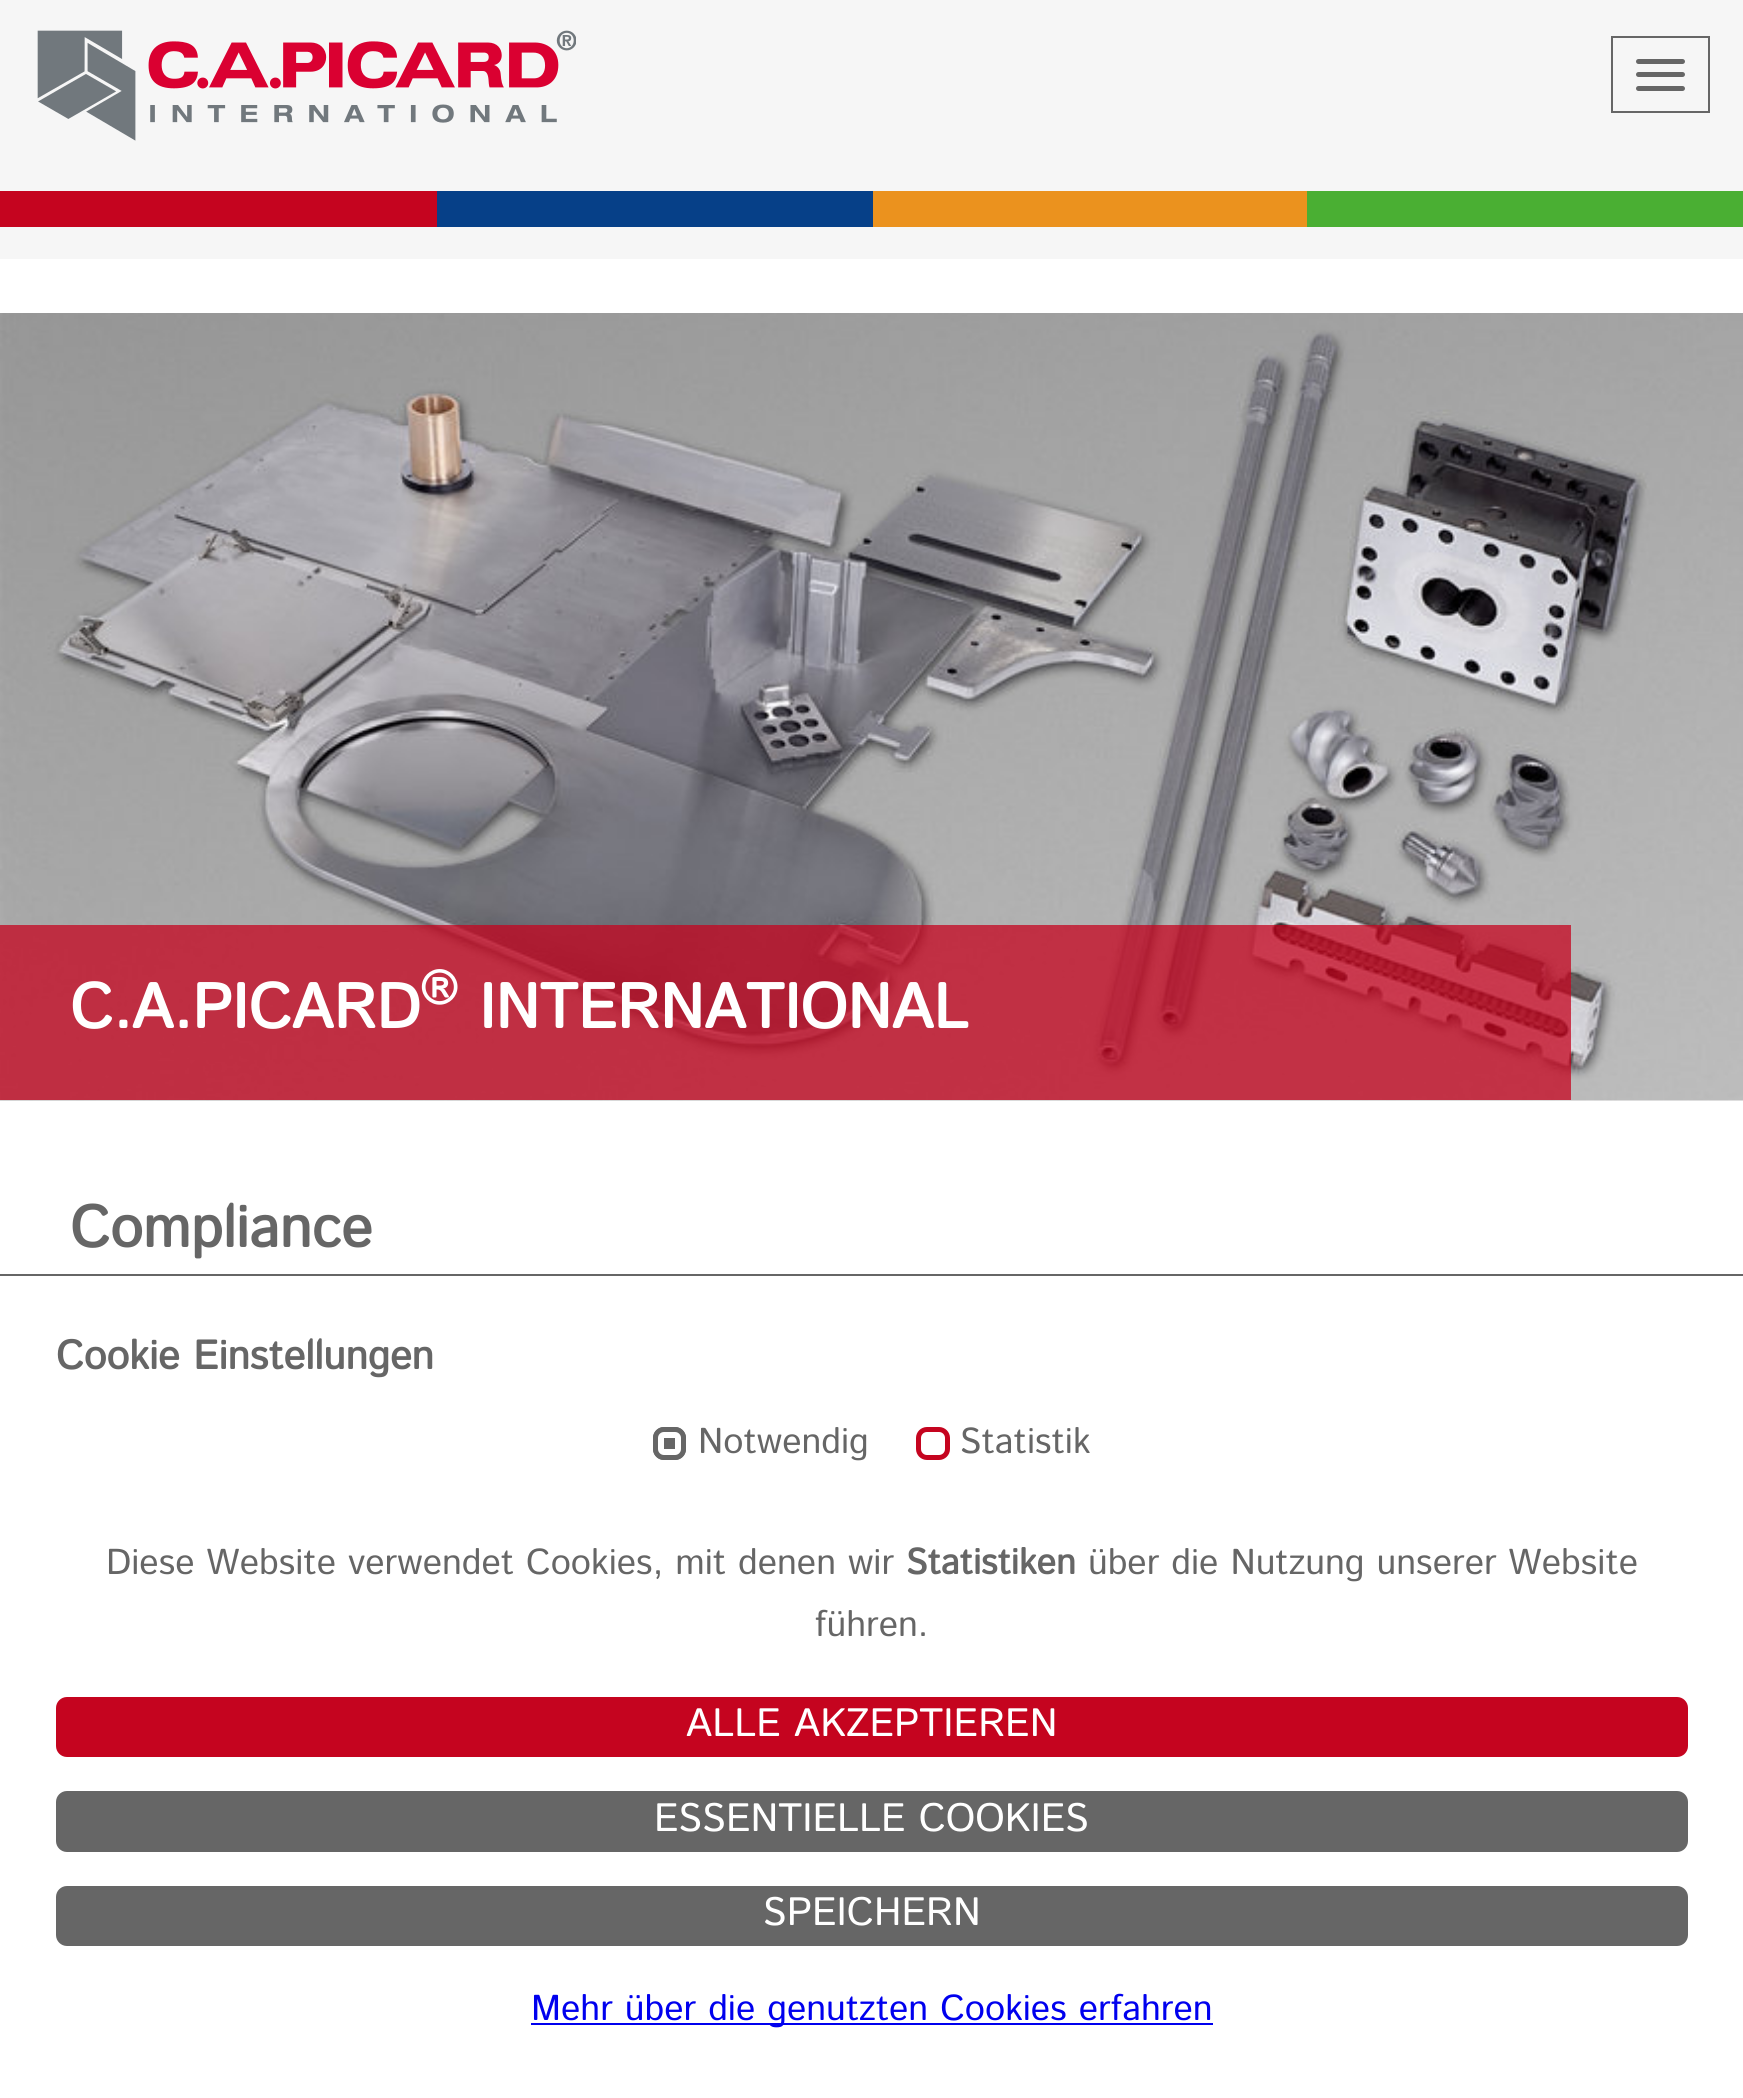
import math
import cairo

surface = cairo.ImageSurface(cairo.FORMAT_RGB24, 1743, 2098)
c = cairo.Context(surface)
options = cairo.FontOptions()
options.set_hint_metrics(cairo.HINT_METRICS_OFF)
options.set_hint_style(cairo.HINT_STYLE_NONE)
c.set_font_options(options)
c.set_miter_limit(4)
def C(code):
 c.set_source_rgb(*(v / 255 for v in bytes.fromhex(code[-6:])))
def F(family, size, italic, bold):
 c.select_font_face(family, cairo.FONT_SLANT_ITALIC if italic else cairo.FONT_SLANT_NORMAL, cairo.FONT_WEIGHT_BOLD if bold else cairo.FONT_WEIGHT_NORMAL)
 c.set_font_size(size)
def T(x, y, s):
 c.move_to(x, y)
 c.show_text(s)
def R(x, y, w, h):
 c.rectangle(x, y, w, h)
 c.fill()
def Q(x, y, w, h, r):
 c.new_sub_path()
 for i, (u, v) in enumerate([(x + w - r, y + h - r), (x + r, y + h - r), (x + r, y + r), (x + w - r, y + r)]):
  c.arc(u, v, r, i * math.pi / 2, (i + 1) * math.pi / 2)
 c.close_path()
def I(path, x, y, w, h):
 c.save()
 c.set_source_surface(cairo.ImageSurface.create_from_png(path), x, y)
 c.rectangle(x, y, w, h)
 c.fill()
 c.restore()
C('f6f6f6')
c.paint()
I('1.png',37,30,539,111)
c.rectangle(1612,37,97,75)
C('666666')
c.stroke()
Q(1636,59,49,5,2.5)
c.fill()
Q(1636,72,49,5,2.5)
c.fill()
Q(1636,86,49,5,2.5)
c.fill()
C('c5041f')
R(0,191,437,36)
C('064088')
R(437,191,436,36)
C('eb921e')
R(873,191,434,36)
C('4aaf33')
R(1307,191,436,36)
C('ffffff')
R(0,259,1743,1015)
I('2.png',0,313,1743,788)
c.set_source_rgba(0.773,0.016,0.122,0.75)
R(0,925,1571,175)
F('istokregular',63,0,1)
C('ffffff')
T(70,1028,'C.A.PICARD')
F('istokregular',47,0,1)
T(420,1004,'®')
F('istokregular',63,0,1)
T(479,1028,'INTERNATIONAL')
F('istokregular',58.5,0,1)
C('666666')
T(70,1247,'Compliance')
C('ffffff')
R(0,1276,1743,822)
C('666666')
R(0,1274,1743,2)
F('istokregular',40.5,0,1)
T(56,1369,'Cookie Einstellungen')
Q(653,1427,33,33,11)
c.fill()
c.rectangle(660.5,1434.5,18,18)
C('ffffff')
c.set_line_width(7)
c.stroke()
Q(655.5,1429.5,28,28,8.5)
C('666666')
c.set_line_width(5)
c.stroke()
F('istokregular Medium',36,0,0)
T(698,1453,'Notwendig')
Q(918.5,1429.5,29,28,8.5)
C('c5041f')
c.stroke()
C('666666')
T(960,1453,'Statistik')
T(106,1574,'Diese Website verwendet Cookies, mit denen wir')
F('istokregular',36,0,1)
T(906,1574,'Statistiken')
F('istokregular Medium',36,0,0)
T(1088,1574,'über die Nutzung unserer Website')
T(815,1636,'führen.')
C('c5041f')
Q(56,1697,1632,60,11)
c.fill()
F('istokregular Medium',39.6,0,0)
C('ffffff')
T(686,1736,'ALLE AKZEPTIEREN')
C('666666')
Q(56,1791,1632,61,11)
c.fill()
C('ffffff')
T(654,1831,'ESSENTIELLE COOKIES')
C('666666')
Q(56,1886,1632,60,11)
c.fill()
C('ffffff')
T(763,1925,'SPEICHERN')
C('0000ee')
R(531,2023,682,2)
F('istokregular Medium',36,0,0)
T(531,2020,'Mehr über die genutzten Cookies erfahren')
surface.write_to_png('o.png')
